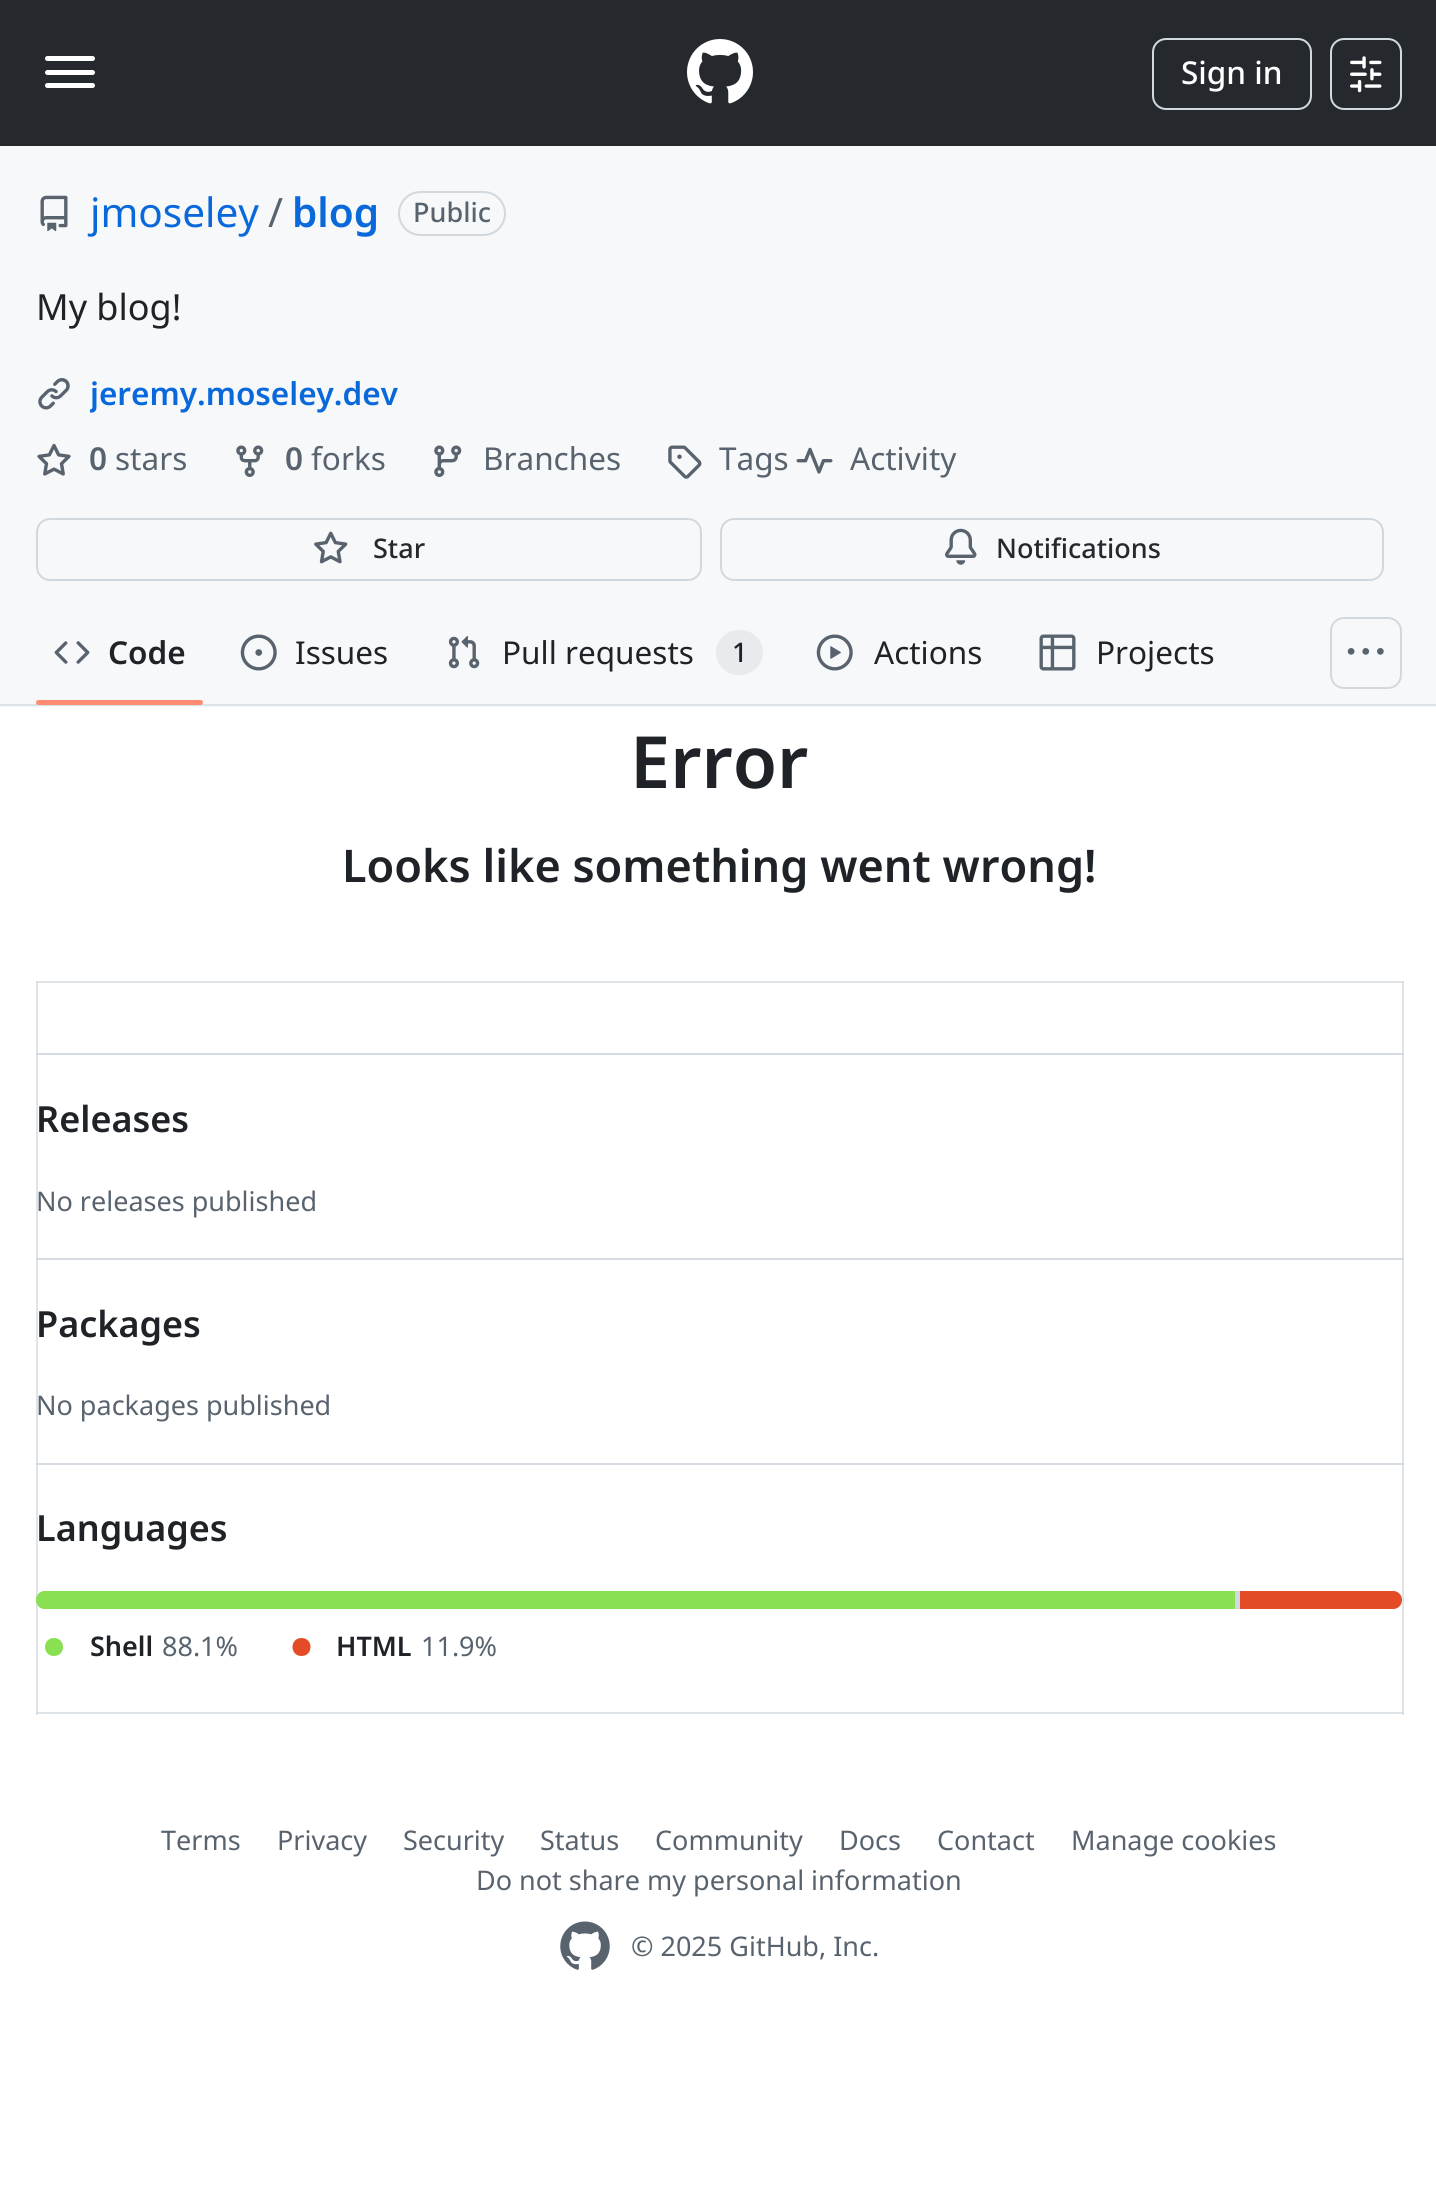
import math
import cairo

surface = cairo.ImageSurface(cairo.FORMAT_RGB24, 1436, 2203)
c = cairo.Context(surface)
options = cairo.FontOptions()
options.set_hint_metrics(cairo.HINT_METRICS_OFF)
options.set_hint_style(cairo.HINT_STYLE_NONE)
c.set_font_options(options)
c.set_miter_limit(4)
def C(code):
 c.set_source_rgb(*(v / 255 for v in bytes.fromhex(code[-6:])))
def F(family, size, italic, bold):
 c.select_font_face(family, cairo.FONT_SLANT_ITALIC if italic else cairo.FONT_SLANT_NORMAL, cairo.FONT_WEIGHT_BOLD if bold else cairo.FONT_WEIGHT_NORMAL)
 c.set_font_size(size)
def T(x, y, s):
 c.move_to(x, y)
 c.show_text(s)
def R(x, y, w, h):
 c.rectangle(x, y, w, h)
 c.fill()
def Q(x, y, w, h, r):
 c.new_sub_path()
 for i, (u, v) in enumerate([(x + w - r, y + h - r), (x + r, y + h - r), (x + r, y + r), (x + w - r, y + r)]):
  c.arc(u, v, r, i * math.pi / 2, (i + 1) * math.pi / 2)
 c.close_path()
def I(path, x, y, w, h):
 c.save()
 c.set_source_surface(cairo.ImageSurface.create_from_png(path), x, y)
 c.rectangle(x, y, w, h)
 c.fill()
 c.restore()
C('ffffff')
c.paint()
C('dfe4e9')
R(36,981,2,734)
R(1402,981,2,484)
R(36,1712,1368,2)
C('d5dce3')
R(36,1712,2,2)
C('dfe4e9')
R(1402,1463,2,252)
C('d5dce3')
R(1402,1712,2,2)
C('25292e')
R(0,0,1436,146)
C('ffffff')
Q(45,56,50,5,2.5)
c.fill()
Q(45,70,50,5,2.5)
c.fill()
Q(45,83,50,5,2.5)
c.fill()
I('1.png',687,39,66,65)
Q(1153,39,158,70,13)
C('d1d9e0')
c.stroke()
F('Noto Sans Medium',31.5,0,0)
C('ffffff')
T(1181,84,'Sign in')
Q(1331,39,70,70,13)
C('d1d9e0')
c.stroke()
I('2.png',1350,56,32,37)
C('f6f8fa')
R(0,146,1436,561)
I('3.png',40,195,28,37)
F('Noto Sans',40.5,0,0)
C('0969da')
T(90,227,'jmoseley')
C('59636e')
T(268,227,'/')
F('Noto Sans SemiBold',40.5,0,0)
C('0969da')
T(292,227,'blog')
Q(399,192,106,43,21.5)
C('d1d9e0')
c.stroke()
F('Noto Sans Medium',27,0,0)
C('59636e')
T(413,222,'Public')
F('Noto Sans',36,0,0)
C('1f2328')
T(36,320,'My blog!')
I('4.png',38,378,32,32)
c.save()
c.rectangle(90,369,1312,47)
c.clip()
F('Noto Sans SemiBold',31.5,0,0)
C('0969da')
T(90,405,'jeremy.moseley.dev')
c.restore()
I('5.png',37,443,34,33)
F('Noto Sans SemiBold',31.5,0,0)
C('59636e')
T(89,470,'0')
F('Noto Sans',31.5,0,0)
T(115,470,'stars')
I('6.png',236,445,28,32)
F('Noto Sans SemiBold',31.5,0,0)
T(285,470,'0')
F('Noto Sans',31.5,0,0)
T(311,470,'forks')
I('7.png',434,445,28,32)
T(483,470,'Branches')
I('8.png',668,445,34,34)
T(719,470,'Tags')
I('9.png',796,447,37,27)
T(850,470,'Activity')
Q(37,519,664,61,13)
C('d1d9e0')
c.stroke()
I('10.png',314,531,34,33)
F('Noto Sans Medium',27,0,0)
C('25292e')
T(373,558,'Star')
Q(721,519,662,61,13)
C('d1d9e0')
c.stroke()
I('11.png',945,528,32,37)
C('25292e')
T(996,558,'Notifications')
C('dce2e8')
R(0,704,1436,2)
I('12.png',54,641,36,23)
F('Noto Sans SemiBold',31.5,0,0)
C('1f2328')
T(108,664,'Code')
C('fd8c73')
Q(36,700,167,5,2.5)
c.fill()
I('13.png',240,634,37,37)
F('Noto Sans',31.5,0,0)
C('1f2328')
T(295,664,'Issues')
I('14.png',448,635,32,34)
T(502,664,'Pull requests')
C('e8ebee')
Q(716,630,47,45,22.5)
c.fill()
F('Noto Sans Medium',27,0,0)
C('1f2328')
T(732,662,'1')
I('15.png',816,634,37,37)
F('Noto Sans',31.5,0,0)
T(874,664,'Actions')
I('16.png',1039,634,37,37)
T(1096,664,'Projects')
Q(1331,618,70,70,13)
C('d1d9e0')
c.stroke()
I('17.png',1347,648,37,7)
F('Noto Sans SemiBold',72,0,0)
C('1f2328')
T(630,788,'Error')
F('Noto Sans SemiBold',45,0,0)
T(342,882,'Looks like something went wrong!')
C('dfe4e9')
R(36,981,1368,2)
C('d5dce3')
R(36,981,2,2)
R(1402,981,2,2)
R(36,1053,1368,2)
C('d1d9e0')
R(36,1053,2,2)
R(1402,1053,2,2)
F('Noto Sans SemiBold',36,0,0)
C('1f2328')
T(36,1132,'Releases')
F('Noto Sans',27,0,0)
C('59636e')
T(36,1211,'No releases published')
C('d5dce3')
R(36,1258,1368,2)
C('d1d9e0')
R(36,1258,2,2)
R(1402,1258,2,2)
F('Noto Sans SemiBold',36,0,0)
C('1f2328')
T(36,1337,'Packages')
F('Noto Sans',27,0,0)
C('59636e')
T(36,1415,'No packages published')
C('d5dce3')
R(36,1463,1368,2)
C('d1d9e0')
R(36,1463,2,2)
R(1402,1463,2,2)
F('Noto Sans SemiBold',36,0,0)
C('1f2328')
T(36,1541,'Languages')
C('d1d9e0')
Q(36,1591,1366,18,9)
c.fill()
C('89e051')
c.new_path()
c.move_to(45,1591)
c.line_to(1235,1591)
c.line_to(1235,1609)
c.line_to(45,1609)
c.curve_to(40,1609,36,1605,36,1600)
c.curve_to(36,1595,40,1591,45,1591)
c.close_path()
c.fill()
C('e34c26')
c.new_path()
c.move_to(1240,1591)
c.line_to(1393,1591)
c.curve_to(1398,1591,1402,1595,1402,1600)
c.curve_to(1402,1605,1398,1609,1393,1609)
c.line_to(1240,1609)
c.close_path()
c.fill()
C('89e051')
c.new_path()
c.move_to(54,1638)
c.curve_to(66,1638,66,1656,54,1656)
c.curve_to(42,1656,42,1638,54,1638)
c.close_path()
c.fill()
F('Noto Sans SemiBold',27,0,0)
C('1f2328')
T(90,1656,'Shell')
F('Noto Sans',27,0,0)
C('59636e')
T(162,1656,'88.1%')
C('e34c26')
c.new_path()
c.move_to(301.5,1638)
c.curve_to(313.5,1638,313.5,1656,301.5,1656)
c.curve_to(289.5,1656,289.5,1638,301.5,1638)
c.close_path()
c.fill()
F('Noto Sans SemiBold',27,0,0)
C('1f2328')
T(336,1656,'HTML')
F('Noto Sans',27,0,0)
C('59636e')
T(421,1656,'11.9%')
T(161,1850,'Terms')
T(277,1850,'Privacy')
T(403,1850,'Security')
T(540,1850,'Status')
T(655,1850,'Community')
T(839,1850,'Docs')
T(937,1850,'Contact')
T(1071,1850,'Manage cookies')
T(476,1890,'Do not share my personal information')
I('18.png',560,1921,50,49)
T(631,1956,'© 2025 GitHub, Inc.')
surface.write_to_png('o.png')
